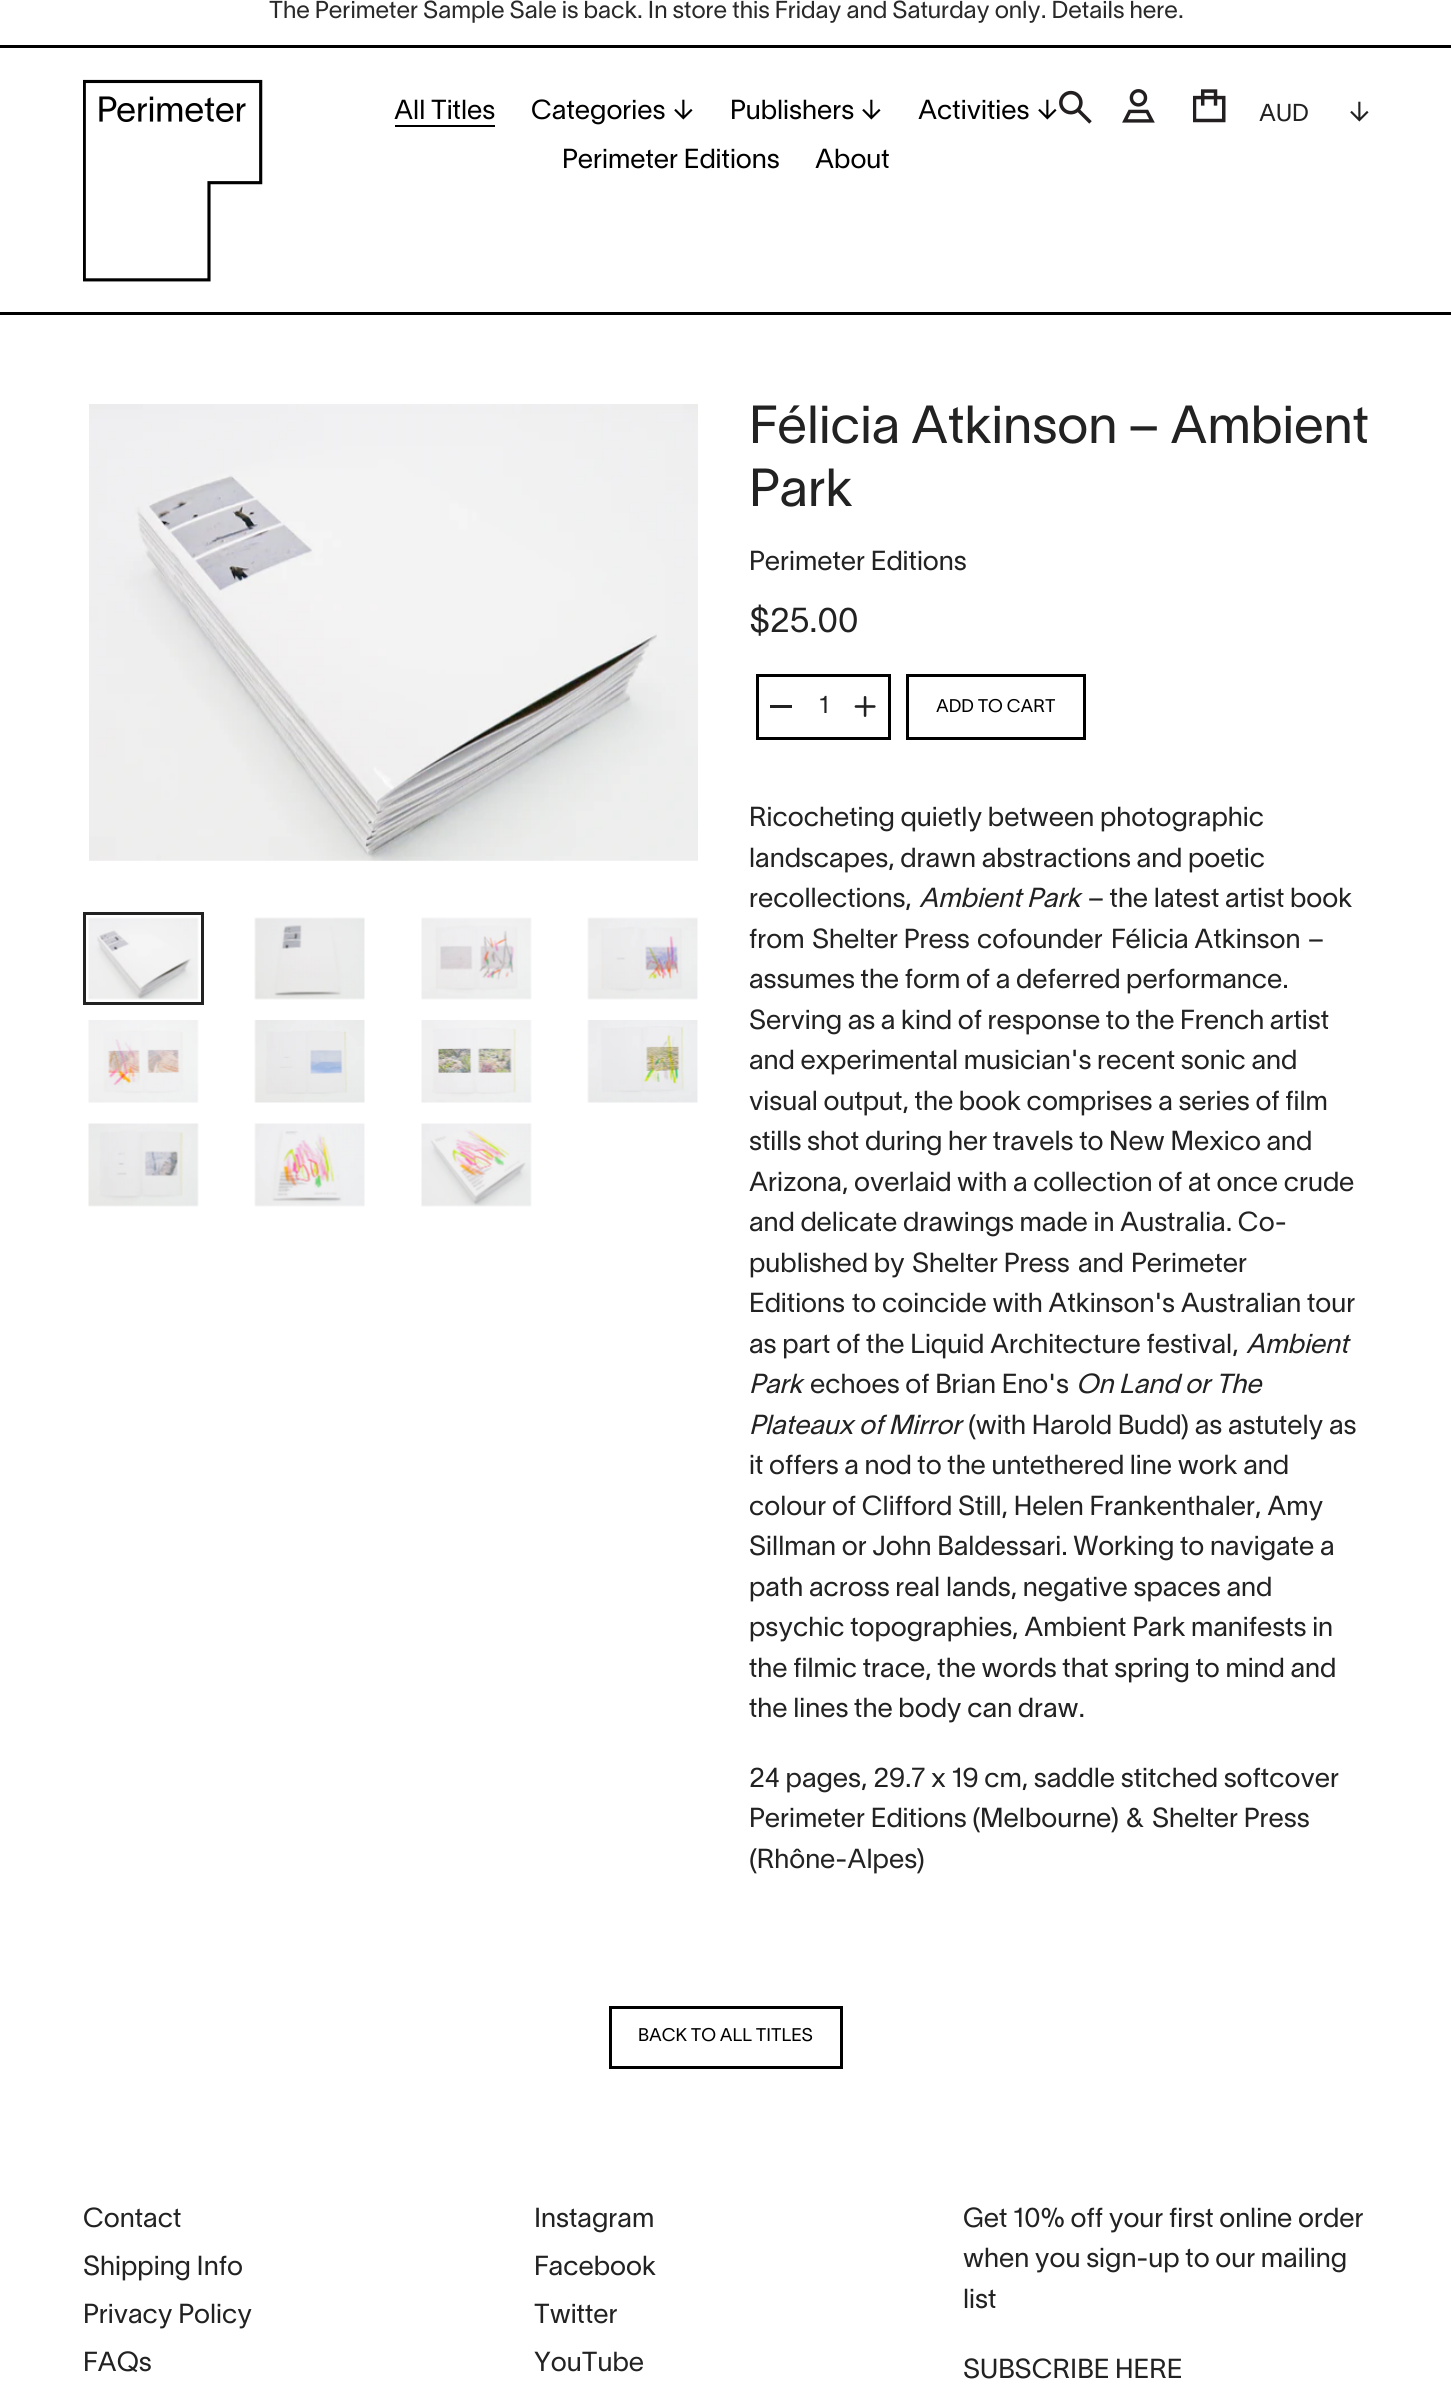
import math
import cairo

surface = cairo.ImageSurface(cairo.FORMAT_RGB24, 1451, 2392)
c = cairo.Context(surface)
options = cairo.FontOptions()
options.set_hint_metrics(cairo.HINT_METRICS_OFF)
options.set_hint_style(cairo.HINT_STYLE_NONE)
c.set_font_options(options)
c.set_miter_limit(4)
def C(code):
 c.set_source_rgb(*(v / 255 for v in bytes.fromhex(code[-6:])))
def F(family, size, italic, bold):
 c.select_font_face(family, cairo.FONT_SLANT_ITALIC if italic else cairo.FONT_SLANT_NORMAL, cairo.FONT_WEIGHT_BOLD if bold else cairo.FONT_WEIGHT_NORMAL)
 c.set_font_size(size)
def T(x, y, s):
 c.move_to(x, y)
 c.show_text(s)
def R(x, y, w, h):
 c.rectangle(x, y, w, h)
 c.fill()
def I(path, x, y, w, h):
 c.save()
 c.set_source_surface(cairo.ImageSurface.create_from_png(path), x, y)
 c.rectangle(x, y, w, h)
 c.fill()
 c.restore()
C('ffffff')
c.paint()
C('000000')
R(0,45,1451,3)
F('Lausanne',24,0,0)
C('292929')
T(269,18,'The Perimeter Sample Sale is back. In store this Friday and Saturday only. Details here.')
C('000000')
R(0,312,1451,3)
I('1.png',83,79,180,203)
F('Lausanne',27,0,0)
T(394,119,'All Titles')
R(395,125,100,2)
T(531,119,'Categories')
T(673,119,'↓')
T(730,119,'Publishers')
T(861,119,'↓')
T(918,119,'Activities')
T(1037,119,'↓')
T(562,168,'Perimeter Editions')
T(815,168,'About')
I('2.png',1059,90,33,34)
I('3.png',1122,89,33,34)
I('4.png',1193,89,33,34)
F('Lausanne',24,0,0)
C('222222')
T(1259,121,'AUD')
F('Lausanne',27,0,0)
T(1349,121,'↓')
I('5.png',89,404,609,457)
c.rectangle(84.5,913.5,118,90)
c.set_line_width(3)
c.stroke()
I('6.png',88,917,111,83)
I('7.png',254,917,111,83)
I('8.png',421,917,111,83)
I('9.png',587,917,111,83)
I('10.png',88,1020,111,83)
I('11.png',254,1020,111,83)
I('12.png',421,1020,111,83)
I('13.png',587,1020,111,83)
I('14.png',88,1123,111,84)
I('15.png',254,1123,111,84)
I('16.png',421,1123,111,84)
F('Lausanne',52.5,0,0)
T(749,443,'Félicia Atkinson – Ambient')
T(749,506,'Park')
F('Lausanne',27,0,0)
T(749,570,'Perimeter Editions')
F('Lausanne',34,0,0)
T(749,632,'$25.00')
c.rectangle(757.5,675.5,132,63)
C('000000')
c.stroke()
C('222222')
R(770,705,22,3)
F('Lausanne',24,0,0)
T(819,713,'1')
I('17.png',854,696,22,21)
c.rectangle(907.5,675.5,177,63)
C('000000')
c.stroke()
F('Lausanne',18,0,0)
T(936,712,'ADD TO CART')
F('Lausanne',27,0,0)
C('222222')
T(749,826,'Ricocheting quietly between photographic')
T(749,867,'landscapes, drawn abstractions and poetic')
T(749,907,'recollections,')
F('Lausanne',27,1,0)
T(919,907,'Ambient Park')
F('Lausanne',27,0,0)
T(1088,907,'– the latest artist book')
T(749,948,'from')
T(812,948,'Shelter Press')
T(977,948,'cofounder')
T(1111,948,'Félicia Atkinson')
T(1308,948,'–')
T(749,988,'assumes the form of a deferred performance.')
T(749,1029,'Serving as a kind of response to the French artist')
T(749,1069,'and experimental musician\'s recent sonic and')
T(749,1110,'visual output, the book comprises a series of film')
T(749,1150,'stills shot during her travels to New Mexico and')
T(749,1191,'Arizona, overlaid with a collection of at once crude')
T(749,1231,'and delicate drawings made in Australia. Co-')
T(749,1272,'published by')
T(912,1272,'Shelter Press')
T(1078,1272,'and')
T(1131,1272,'Perimeter')
T(749,1312,'Editions')
T(852,1312,'to coincide with Atkinson\'s Australian tour')
T(749,1353,'as part of the Liquid Architecture festival,')
F('Lausanne',27,1,0)
T(1246,1353,'Ambient')
T(749,1393,'Park')
F('Lausanne',27,0,0)
T(810,1393,'echoes of Brian Eno\'s')
F('Lausanne',27,1,0)
T(1076,1393,'On Land or The')
T(749,1434,'Plateaux of Mirror')
F('Lausanne',27,0,0)
T(968,1434,'(with Harold Budd) as astutely as')
T(749,1474,'it offers a nod to the untethered line work and')
T(749,1515,'colour of Clifford Still, Helen Frankenthaler, Amy')
T(749,1555,'Sillman or John Baldessari. Working to navigate a')
T(749,1596,'path across real lands, negative spaces and')
T(749,1636,'psychic topographies, Ambient Park manifests in')
T(749,1677,'the filmic trace, the words that spring to mind and')
T(749,1717,'the lines the body can draw.')
T(749,1787,'24 pages, 29.7 x 19 cm, saddle stitched softcover')
T(749,1827,'Perimeter Editions (Melbourne)')
T(1126,1827,'&')
T(1152,1827,'Shelter Press')
T(749,1868,'(Rhône-Alpes)')
c.rectangle(610.5,2007.5,231,60)
C('000000')
c.stroke()
F('Lausanne',18,0,0)
T(638,2041,'BACK TO ALL TITLES')
F('Lausanne',27,0,0)
C('222222')
T(83,2227,'Contact')
T(83,2275,'Shipping Info')
T(83,2323,'Privacy Policy')
T(83,2371,'FAQs')
T(534,2227,'Instagram')
T(534,2275,'Facebook')
T(534,2323,'Twitter')
T(534,2371,'YouTube')
T(963,2227,'Get 10% off your first online order')
T(963,2267,'when you sign-up to our mailing')
T(963,2308,'list')
T(963,2378,'SUBSCRIBE HERE')
surface.write_to_png('o.png')
